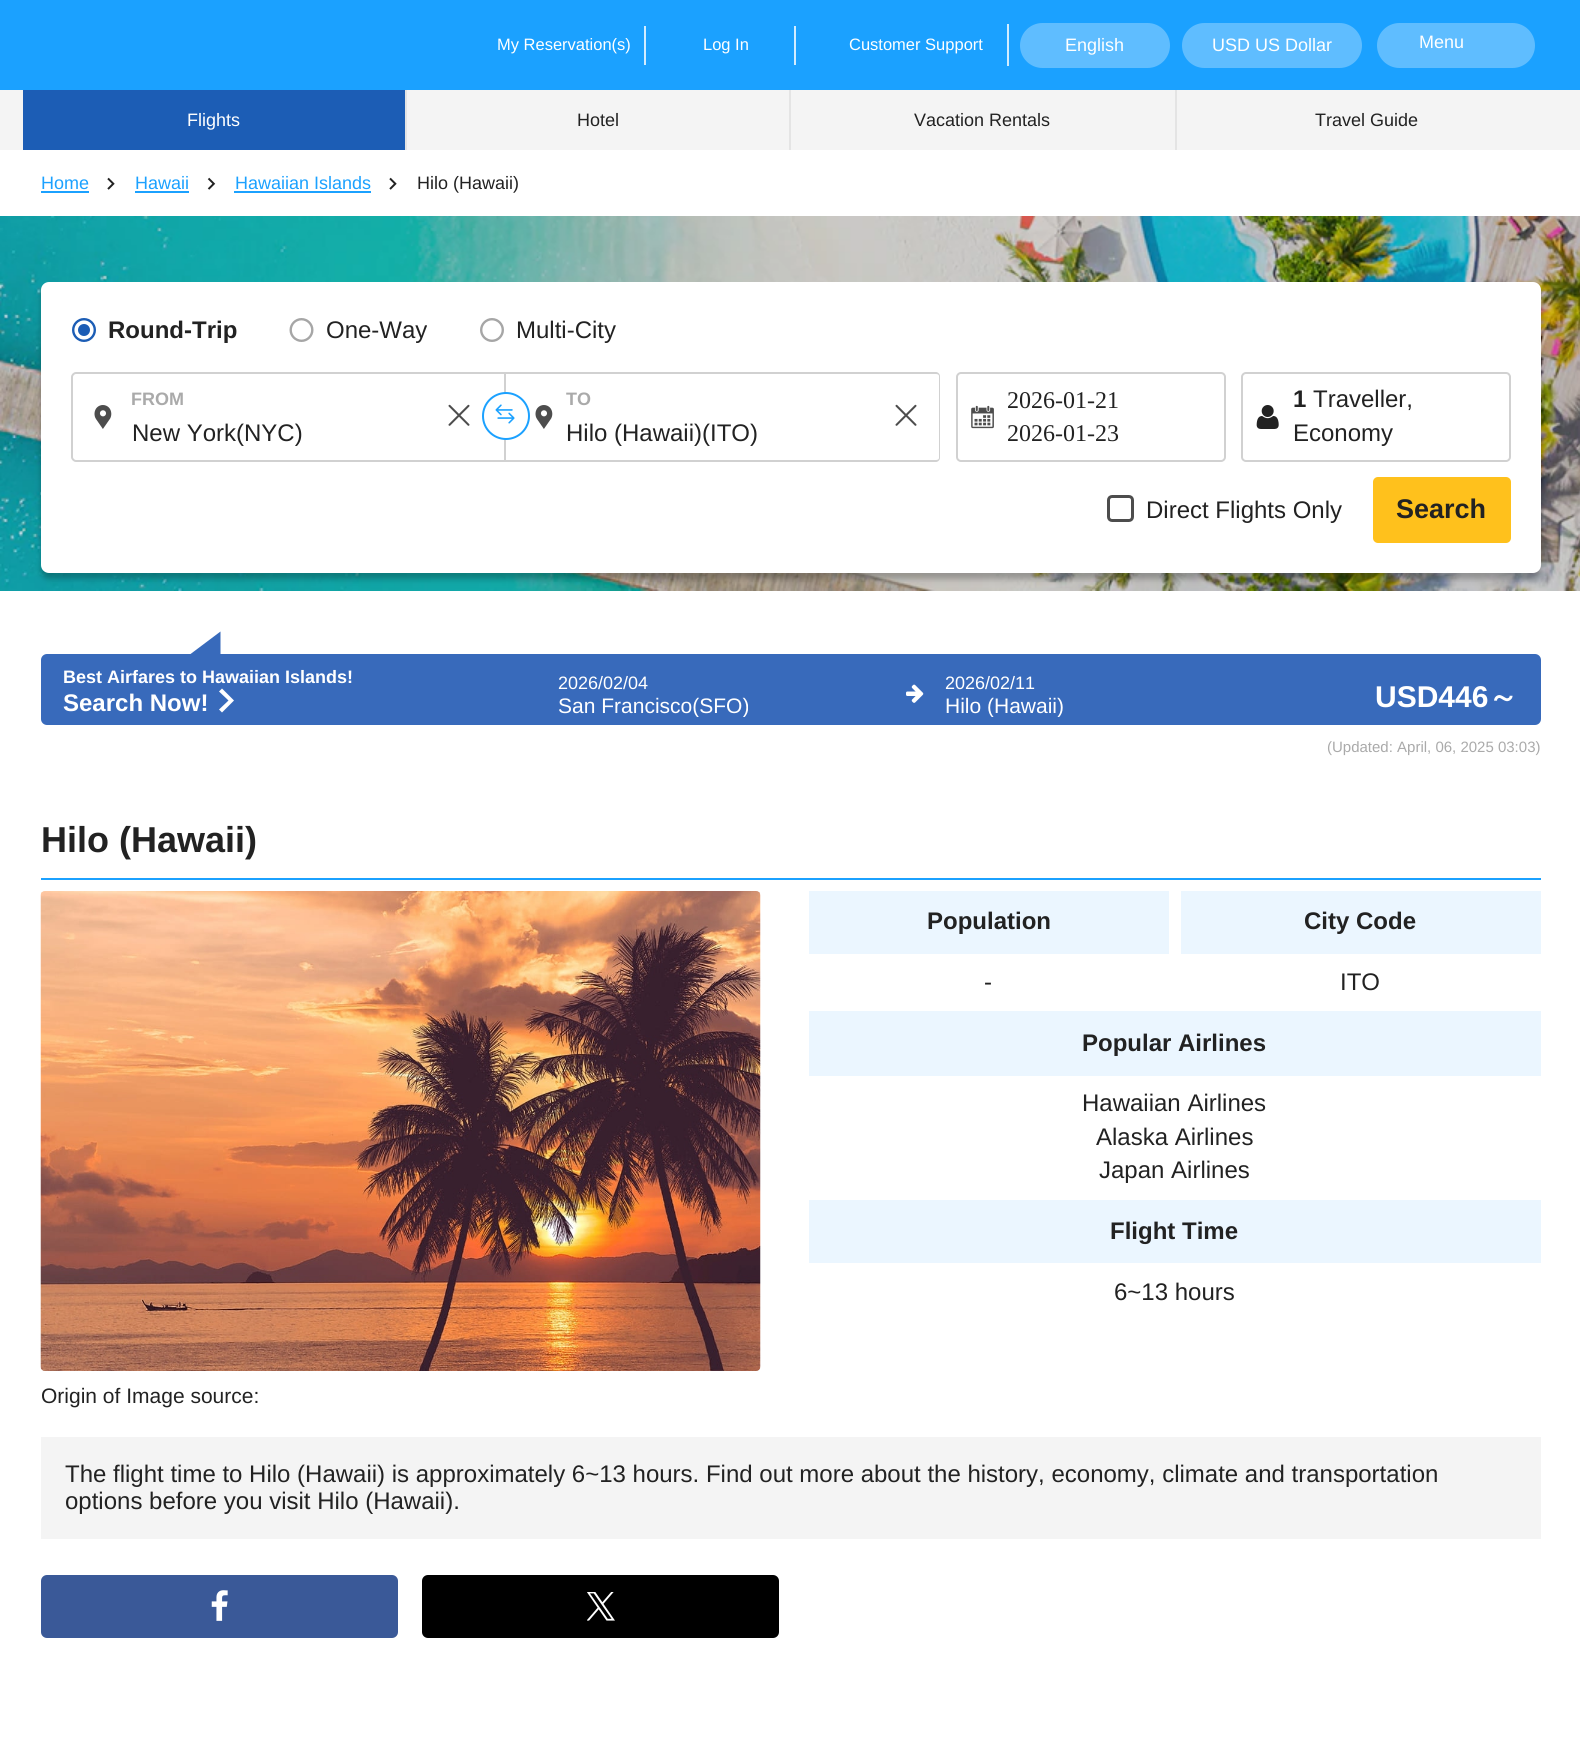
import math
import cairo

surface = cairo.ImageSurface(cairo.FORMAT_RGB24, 1580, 1741)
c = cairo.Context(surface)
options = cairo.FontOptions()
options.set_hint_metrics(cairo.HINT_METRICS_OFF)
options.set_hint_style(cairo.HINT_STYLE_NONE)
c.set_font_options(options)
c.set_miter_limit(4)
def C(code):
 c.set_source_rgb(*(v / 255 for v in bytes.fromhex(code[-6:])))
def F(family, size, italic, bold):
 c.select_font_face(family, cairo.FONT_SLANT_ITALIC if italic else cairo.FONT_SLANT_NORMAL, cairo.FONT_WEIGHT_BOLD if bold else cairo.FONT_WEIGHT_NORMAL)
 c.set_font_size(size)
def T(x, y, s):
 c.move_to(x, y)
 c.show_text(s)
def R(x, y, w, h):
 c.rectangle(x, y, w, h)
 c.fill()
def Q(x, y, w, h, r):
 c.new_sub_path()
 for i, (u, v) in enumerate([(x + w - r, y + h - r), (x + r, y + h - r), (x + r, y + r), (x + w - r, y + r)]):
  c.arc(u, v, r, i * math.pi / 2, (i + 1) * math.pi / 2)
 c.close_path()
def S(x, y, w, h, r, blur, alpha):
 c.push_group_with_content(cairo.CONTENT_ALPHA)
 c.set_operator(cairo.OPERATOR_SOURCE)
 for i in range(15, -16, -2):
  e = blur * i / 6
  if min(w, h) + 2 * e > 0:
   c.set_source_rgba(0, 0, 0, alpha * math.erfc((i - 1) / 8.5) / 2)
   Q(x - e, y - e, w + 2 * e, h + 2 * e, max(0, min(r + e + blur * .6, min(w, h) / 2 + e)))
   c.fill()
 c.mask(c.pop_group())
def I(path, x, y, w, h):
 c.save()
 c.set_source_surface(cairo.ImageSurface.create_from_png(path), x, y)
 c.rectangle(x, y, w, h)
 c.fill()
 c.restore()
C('ffffff')
c.paint()
C('1ba1ff')
R(0,0,1580,90)
C('d1ecff')
R(644,26,2,39)
F('Liberation Sans',16.5,0,0)
C('ffffff')
T(497,50,'My Reservation(s)')
C('d1ecff')
R(794,26,2,39)
C('ffffff')
T(703,50,'Log In')
C('d1ecff')
R(1007,24,2,42)
C('ffffff')
T(849,50,'Customer Support')
C('5fbdff')
Q(1020,23,150,45,22.5)
c.fill()
F('Liberation Sans',18,0,0)
C('ffffff')
T(1065,51,'English')
C('5fbdff')
Q(1182,23,180,45,22.5)
c.fill()
C('ffffff')
T(1212,51,'USD US Dollar')
C('5fbdff')
Q(1377,23,158,45,22.5)
c.fill()
C('ffffff')
T(1419,48,'Menu')
C('f4f4f4')
R(0,90,1580,60)
C('1c5db5')
R(23,90,382,60)
C('e4e4e4')
R(405,90,2,60)
C('ffffff')
T(187,126,'Flights')
C('e4e4e4')
R(789,90,2,60)
C('222222')
T(577,126,'Hotel')
C('e4e4e4')
R(1175,90,2,60)
C('222222')
T(914,126,'Vacation Rentals')
T(1315,126,'Travel Guide')
C('1ba1ff')
T(41,189,'Home')
R(41,191,48,2)
I('1.png',107,177,8,13)
T(135,189,'Hawaii')
R(135,191,54,2)
I('2.png',207,177,9,13)
T(235,189,'Hawaiian Islands')
R(234,191,137,2)
I('1.png',389,177,8,13)
C('222222')
T(417,189,'Hilo (Hawaii)')
I('3.png',0,216,1580,375)
C('000000')
S(41,288,1500,291,8,3,.25)
C('ffffff')
Q(41,282,1500,291,8)
c.fill()
I('4.png',72,318,24,24)
F('Liberation Sans',24,0,1)
C('222222')
T(108,338,'Round-Trip')
I('5.png',289,318,25,24)
F('Liberation Sans',24,0,0)
T(326,338,'One-Way')
I('6.png',480,318,24,24)
T(516,338,'Multi-City')
c.new_path()
c.move_to(76,373)
c.line_to(505,373)
c.line_to(505,461)
c.line_to(76,461)
c.curve_to(74,461,72,459,72,457)
c.line_to(72,377)
c.curve_to(72,375,74,373,76,373)
c.close_path()
C('d1d1d1')
c.stroke()
I('7.png',94,405,18,24)
F('Liberation Sans',18,0,1)
C('aaaaaa')
T(131,405,'FROM')
F('Liberation Sans',24,0,0)
C('222222')
T(132,441,'New York(NYC)')
I('8.png',448,404,22,22)
C('d1d1d1')
c.set_fill_rule(cairo.FILL_RULE_EVEN_ODD)
c.new_path()
c.move_to(506,372)
c.line_to(936,372)
c.curve_to(938,372,940,374,940,376)
c.line_to(940,458)
c.curve_to(940,460,938,462,936,462)
c.line_to(506,462)
c.close_path()
c.move_to(506,374)
c.line_to(936,374)
c.curve_to(938,374,939,375,939,376)
c.line_to(939,458)
c.curve_to(939,459,938,460,936,460)
c.line_to(506,460)
c.close_path()
c.fill()
C('ffffff')
c.arc(506,416,23,0,2 * math.pi)
c.fill_preserve()
C('1ba1ff')
c.stroke()
I('9.png',495,404,20,20)
I('7.png',535,405,18,24)
F('Liberation Sans',18,0,1)
C('aaaaaa')
T(566,405,'TO')
F('Liberation Sans',24,0,0)
C('222222')
T(566,441,'Hilo (Hawaii)(ITO)')
I('8.png',895,404,22,22)
Q(957,373,268,88,4)
C('d1d1d1')
c.stroke()
I('10.png',971,405,23,24)
F('Liberation Serif',24,0,0)
C('222222')
T(1007,408,'2026-01-21')
T(1007,441,'2026-01-23')
Q(1242,373,268,88,4)
C('d1d1d1')
c.stroke()
I('11.png',1256,405,23,24)
F('Liberation Sans',24,0,1)
C('222222')
T(1293,407,'1')
F('Liberation Sans',24,0,0)
T(1313,407,'Traveller,')
T(1293,441,'Economy')
Q(1108.5,496.5,24,24,3.5)
C('4d4d4d')
c.set_line_width(3)
c.stroke()
C('222222')
T(1146,518,'Direct Flights Only')
C('ffc11c')
Q(1373,477,138,66,5)
c.fill()
F('Liberation Sans',27,0,1)
C('222222')
T(1396,518,'Search')
C('386abb')
Q(41,654,1500,71,6)
c.fill()
c.set_fill_rule(cairo.FILL_RULE_WINDING)
c.new_path()
c.move_to(220.5,654)
c.line_to(190.5,654)
c.line_to(220.5,631.5)
c.close_path()
c.fill()
F('Liberation Sans',18,0,1)
C('ffffff')
T(63,683,'Best Airfares to Hawaiian Islands!')
F('Liberation Sans',24,0,1)
T(63,711,'Search Now!')
c.new_path()
c.move_to(222,688.5)
c.line_to(219,691.5)
c.line_to(228.5,700.5)
c.line_to(219,709.5)
c.line_to(222,712.5)
c.line_to(234,700.5)
c.close_path()
c.fill()
F('Liberation Sans',18,0,0)
T(558,689,'2026/02/04')
c.save()
c.rectangle(558,669,225,48)
c.clip()
F('Liberation Sans',21,0,0)
T(558,713,'San Francisco(SFO)')
c.restore()
I('12.png',906,684,18,19)
T(945,689,'2026/02/11')
c.save()
c.rectangle(945,669,225,48)
c.clip()
F('Liberation Sans',21,0,0)
T(945,713,'Hilo (Hawaii)')
c.restore()
F('Liberation Sans',30,0,1)
T(1375,707,'USD446')
F('WenQuanYi Zen Hei',30,0,1)
T(1488,707,'～')
F('Liberation Sans',15,0,0)
C('aaaaaa')
T(1327,752,'(Updated: April, 06, 2025 03:03)')
C('1ba1ff')
R(41,878,1500,2)
F('Liberation Sans',36,0,1)
C('222222')
T(41,852,'Hilo (Hawaii)')
C('ebf6ff')
R(809,891,360,63)
F('Liberation Sans',24,0,1)
C('222222')
T(927,929,'Population')
C('ebf6ff')
R(1181,891,360,63)
C('222222')
T(1304,929,'City Code')
F('Liberation Sans',24,0,0)
T(984,990,'-')
T(1340,990,'ITO')
C('ebf6ff')
R(809,1011,732,65)
F('Liberation Sans',24,0,1)
C('222222')
T(1082,1051,'Popular Airlines')
F('Liberation Sans',24,0,0)
T(1082,1111,'Hawaiian Airlines')
T(1096,1145,'Alaska Airlines')
T(1099,1178,'Japan Airlines')
C('ebf6ff')
R(809,1200,732,63)
F('Liberation Sans',24,0,1)
C('222222')
T(1110,1239,'Flight Time')
F('Liberation Sans',24,0,0)
T(1114,1300,'6~13 hours')
I('13.png',40,891,721,480)
F('Liberation Sans',21,0,0)
T(41,1403,'Origin of Image source:')
C('f4f4f4')
R(41,1437,1500,102)
F('Liberation Sans',24,0,0)
C('222222')
T(65,1482,'The flight time to Hilo (Hawaii) is approximately 6~13 hours. Find out more about the history, economy, climate and transportation')
T(65,1509,'options before you visit Hilo (Hawaii).')
C('3a5998')
Q(41,1575,357,63,6)
c.fill()
I('14.png',211,1590,17,31)
C('000000')
Q(422,1575,357,63,6)
c.fill()
I('15.png',587,1592,28,29)
surface.write_to_png('o.png')
